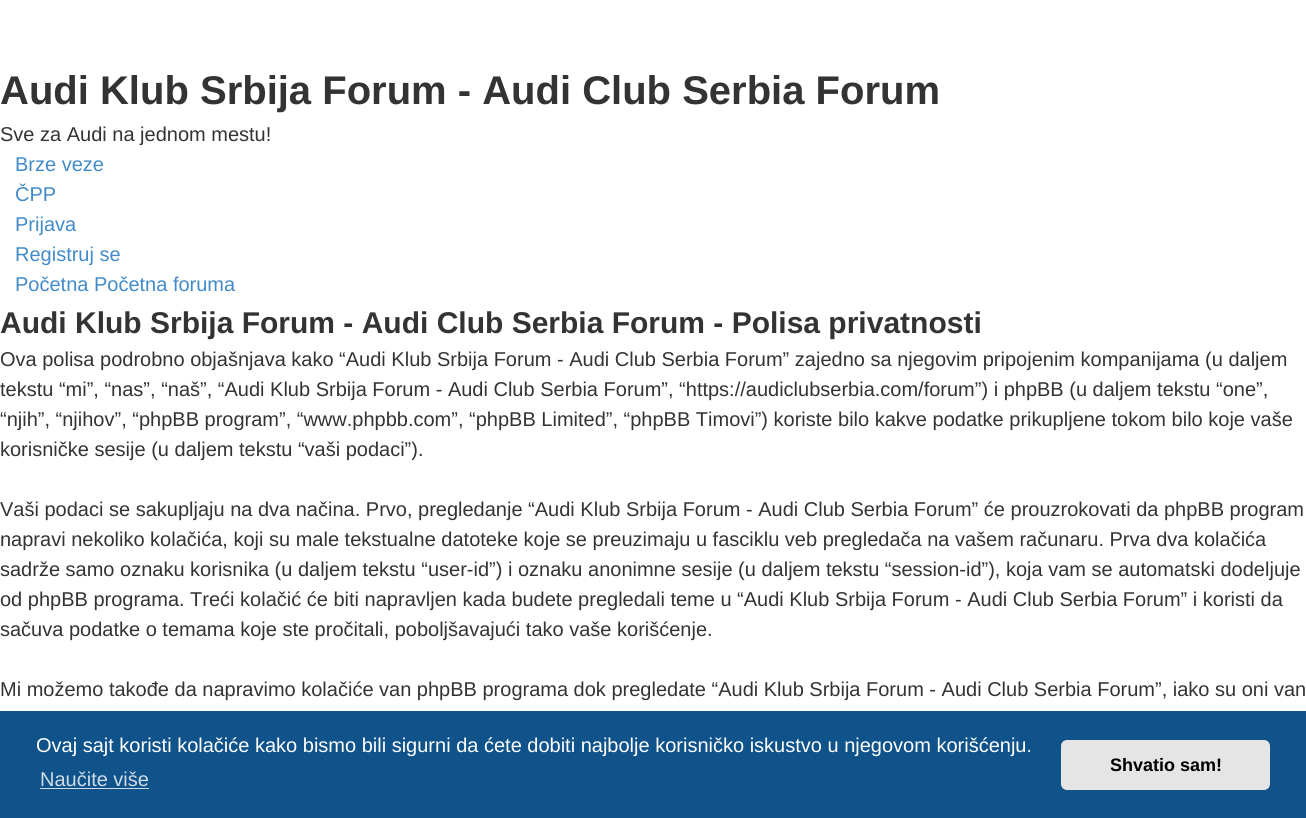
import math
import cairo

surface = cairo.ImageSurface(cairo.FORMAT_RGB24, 1306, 818)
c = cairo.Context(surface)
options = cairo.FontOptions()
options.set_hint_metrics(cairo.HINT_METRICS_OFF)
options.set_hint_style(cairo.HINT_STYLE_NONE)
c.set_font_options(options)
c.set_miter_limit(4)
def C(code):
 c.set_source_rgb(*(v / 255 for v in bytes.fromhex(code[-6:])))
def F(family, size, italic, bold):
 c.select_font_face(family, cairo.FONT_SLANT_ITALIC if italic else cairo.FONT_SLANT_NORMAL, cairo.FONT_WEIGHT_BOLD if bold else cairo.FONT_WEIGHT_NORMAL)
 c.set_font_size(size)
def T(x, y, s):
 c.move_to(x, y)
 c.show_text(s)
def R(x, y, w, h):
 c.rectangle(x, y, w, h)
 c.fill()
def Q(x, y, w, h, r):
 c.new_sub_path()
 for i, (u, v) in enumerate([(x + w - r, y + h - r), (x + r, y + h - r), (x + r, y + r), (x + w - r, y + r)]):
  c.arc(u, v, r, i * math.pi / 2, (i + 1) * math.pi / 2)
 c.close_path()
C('ffffff')
c.paint()
F('Liberation Sans',40,0,1)
C('333333')
T(0,104,'Audi Klub Srbija Forum - Audi Club Serbia Forum')
F('Liberation Sans',20,0,0)
T(0,141,'Sve za Audi na jednom mestu!')
C('428bca')
T(15,171,'Brze veze')
T(15,201,'ČPP')
T(15,231,'Prijava')
T(15,261,'Registruj se')
T(15,291,'Početna Početna foruma')
F('Liberation Sans',30,0,1)
C('333333')
T(0,333,'Audi Klub Srbija Forum - Audi Club Serbia Forum - Polisa privatnosti')
F('Liberation Sans',20,0,0)
T(0,366,'Ova polisa podrobno objašnjava kako “Audi Klub Srbija Forum - Audi Club Serbia Forum” zajedno sa njegovim pripojenim kompanijama (u daljem')
T(0,396,'tekstu “mi”, “nas”, “naš”, “Audi Klub Srbija Forum - Audi Club Serbia Forum”, “https://audiclubserbia.com/forum”) i phpBB (u daljem tekstu “one”,')
T(0,426,'“njih”, “njihov”, “phpBB program”, “www.phpbb.com”, “phpBB Limited”, “phpBB Timovi”) koriste bilo kakve podatke prikupljene tokom bilo koje vaše')
T(0,456,'korisničke sesije (u daljem tekstu “vaši podaci”).')
T(0,516,'Vaši podaci se sakupljaju na dva načina. Prvo, pregledanje “Audi Klub Srbija Forum - Audi Club Serbia Forum” će prouzrokovati da phpBB program')
T(0,546,'napravi nekoliko kolačića, koji su male tekstualne datoteke koje se preuzimaju u fasciklu veb pregledača na vašem računaru. Prva dva kolačića')
T(0,576,'sadrže samo oznaku korisnika (u daljem tekstu “user-id”) i oznaku anonimne sesije (u daljem tekstu “session-id”), koja vam se automatski dodeljuje')
T(0,606,'od phpBB programa. Treći kolačić će biti napravljen kada budete pregledali teme u “Audi Klub Srbija Forum - Audi Club Serbia Forum” i koristi da')
T(0,636,'sačuva podatke o temama koje ste pročitali, poboljšavajući tako vaše korišćenje.')
T(0,696,'Mi možemo takođe da napravimo kolačiće van phpBB programa dok pregledate “Audi Klub Srbija Forum - Audi Club Serbia Forum”, iako su oni van')
C('0f538a')
R(0,711,1306,107)
C('ffffff')
T(36,752,'Ovaj sajt koristi kolačiće kako bismo bili sigurni da ćete dobiti najbolje korisničko iskustvo u njegovom korišćenju.')
C('cfdde8')
T(40,786,'Naučite više')
R(40,788,109,1)
C('e5e5e5')
Q(1061,740,209,50,6)
c.fill()
F('Liberation Sans',18,0,1)
C('000000')
T(1110,771,'Shvatio sam!')
surface.write_to_png('o.png')
